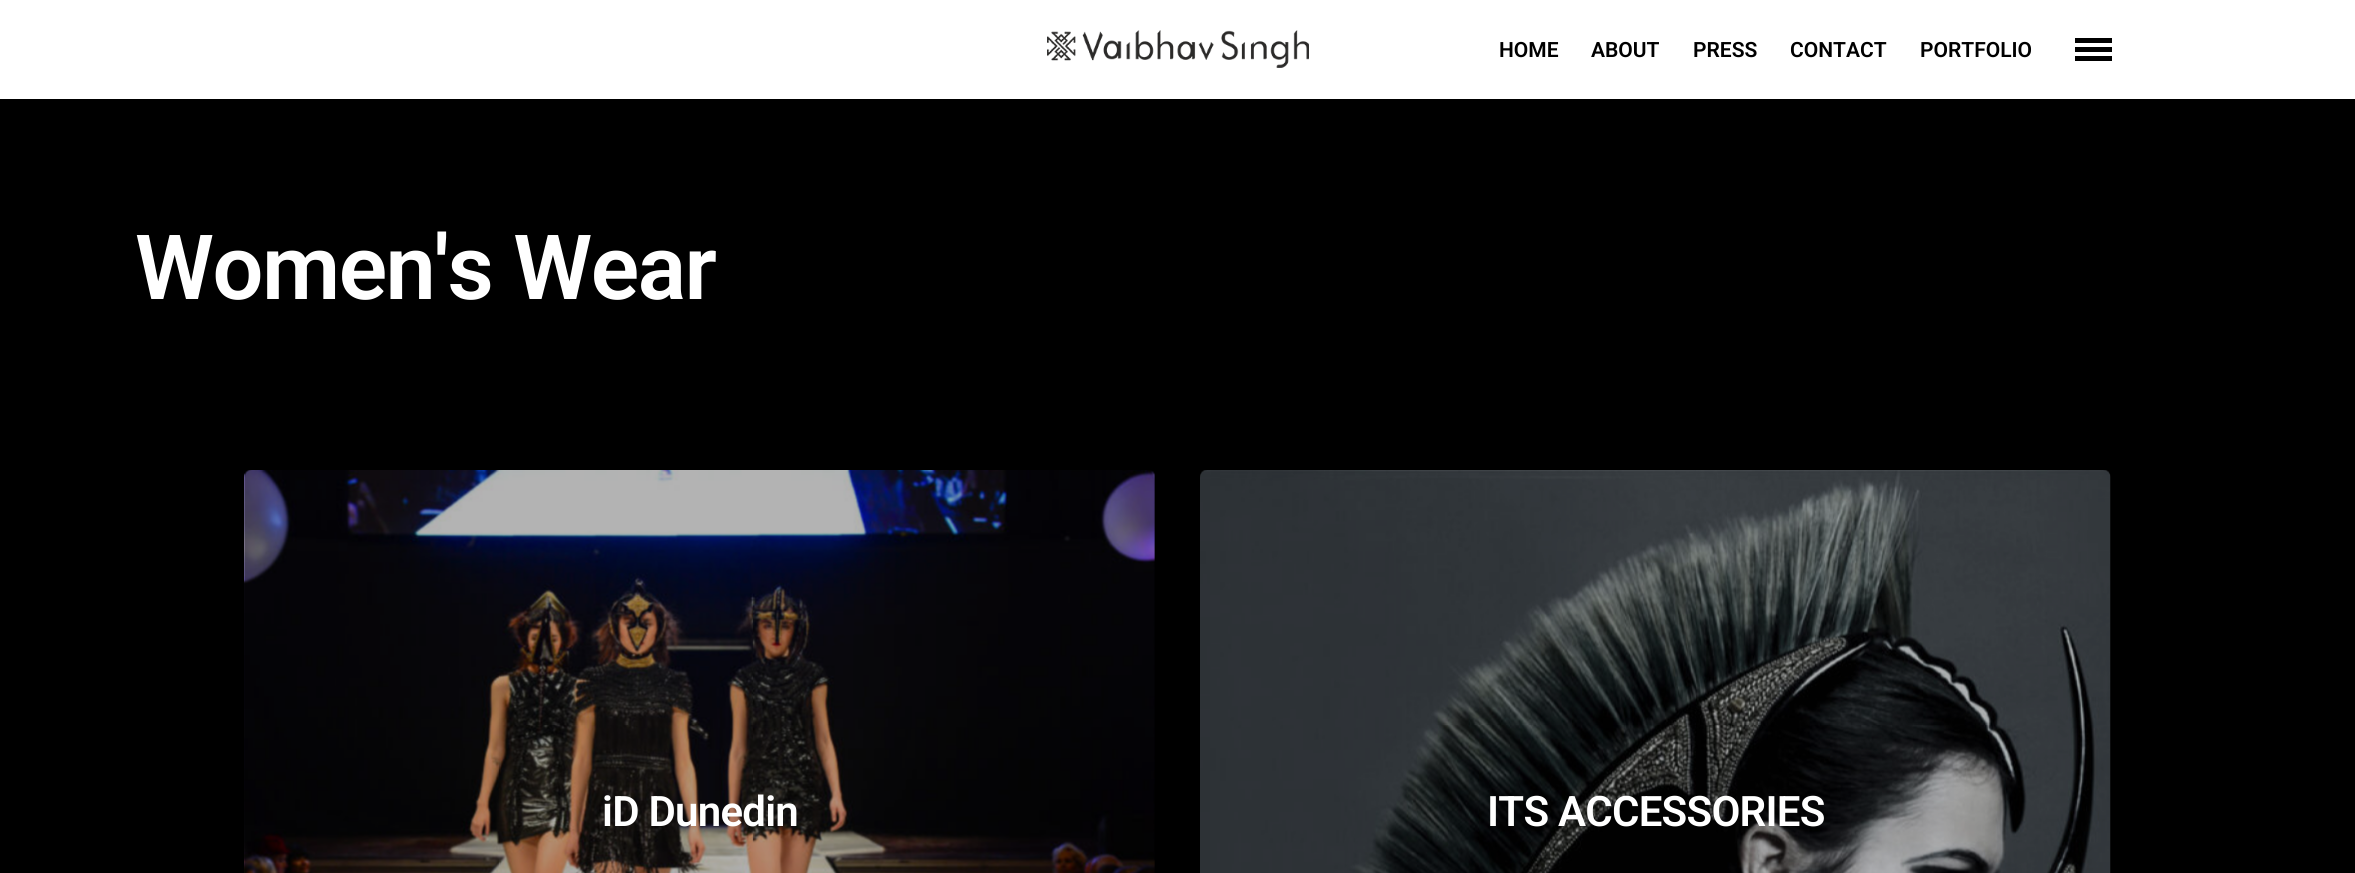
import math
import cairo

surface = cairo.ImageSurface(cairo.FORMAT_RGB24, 2355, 873)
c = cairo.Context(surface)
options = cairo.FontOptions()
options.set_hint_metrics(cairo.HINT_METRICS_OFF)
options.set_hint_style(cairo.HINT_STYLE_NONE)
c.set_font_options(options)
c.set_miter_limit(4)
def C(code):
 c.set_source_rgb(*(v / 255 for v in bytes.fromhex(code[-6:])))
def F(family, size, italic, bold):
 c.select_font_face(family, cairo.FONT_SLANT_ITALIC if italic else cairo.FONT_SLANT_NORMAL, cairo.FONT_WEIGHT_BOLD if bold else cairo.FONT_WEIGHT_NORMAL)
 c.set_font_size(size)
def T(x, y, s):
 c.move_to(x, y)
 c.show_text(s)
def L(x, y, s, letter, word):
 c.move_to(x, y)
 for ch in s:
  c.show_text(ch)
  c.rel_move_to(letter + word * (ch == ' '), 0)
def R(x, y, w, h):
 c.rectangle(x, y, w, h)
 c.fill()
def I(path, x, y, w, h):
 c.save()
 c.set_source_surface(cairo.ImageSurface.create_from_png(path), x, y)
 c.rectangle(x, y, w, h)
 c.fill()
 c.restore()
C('000000')
c.paint()
C('ffffff')
R(0,0,2355,99)
I('1.png',1047,30,262,38)
F('Roboto SemiBold',21,0,0)
C('000000')
T(1499,57,'HOME')
T(1591,57,'ABOUT')
T(1693,57,'PRESS')
T(1790,57,'CONTACT')
T(1920,57,'PORTFOLIO')
R(2075,38,37,5)
R(2075,47,37,5)
R(2075,56,37,5)
F('Roboto SemiBold',90,0,0)
C('ffffff')
L(135,299,'Women\'s Wear',-1.5,0)
I('2.png',244,470,911,403)
F('Roboto SemiBold',42,0,0)
L(602,826,'iD Dunedin',-.75,0)
I('3.png',1200,470,911,403)
L(1487,826,'ITS ACCESSORIES',-.75,0)
surface.write_to_png('o.png')
